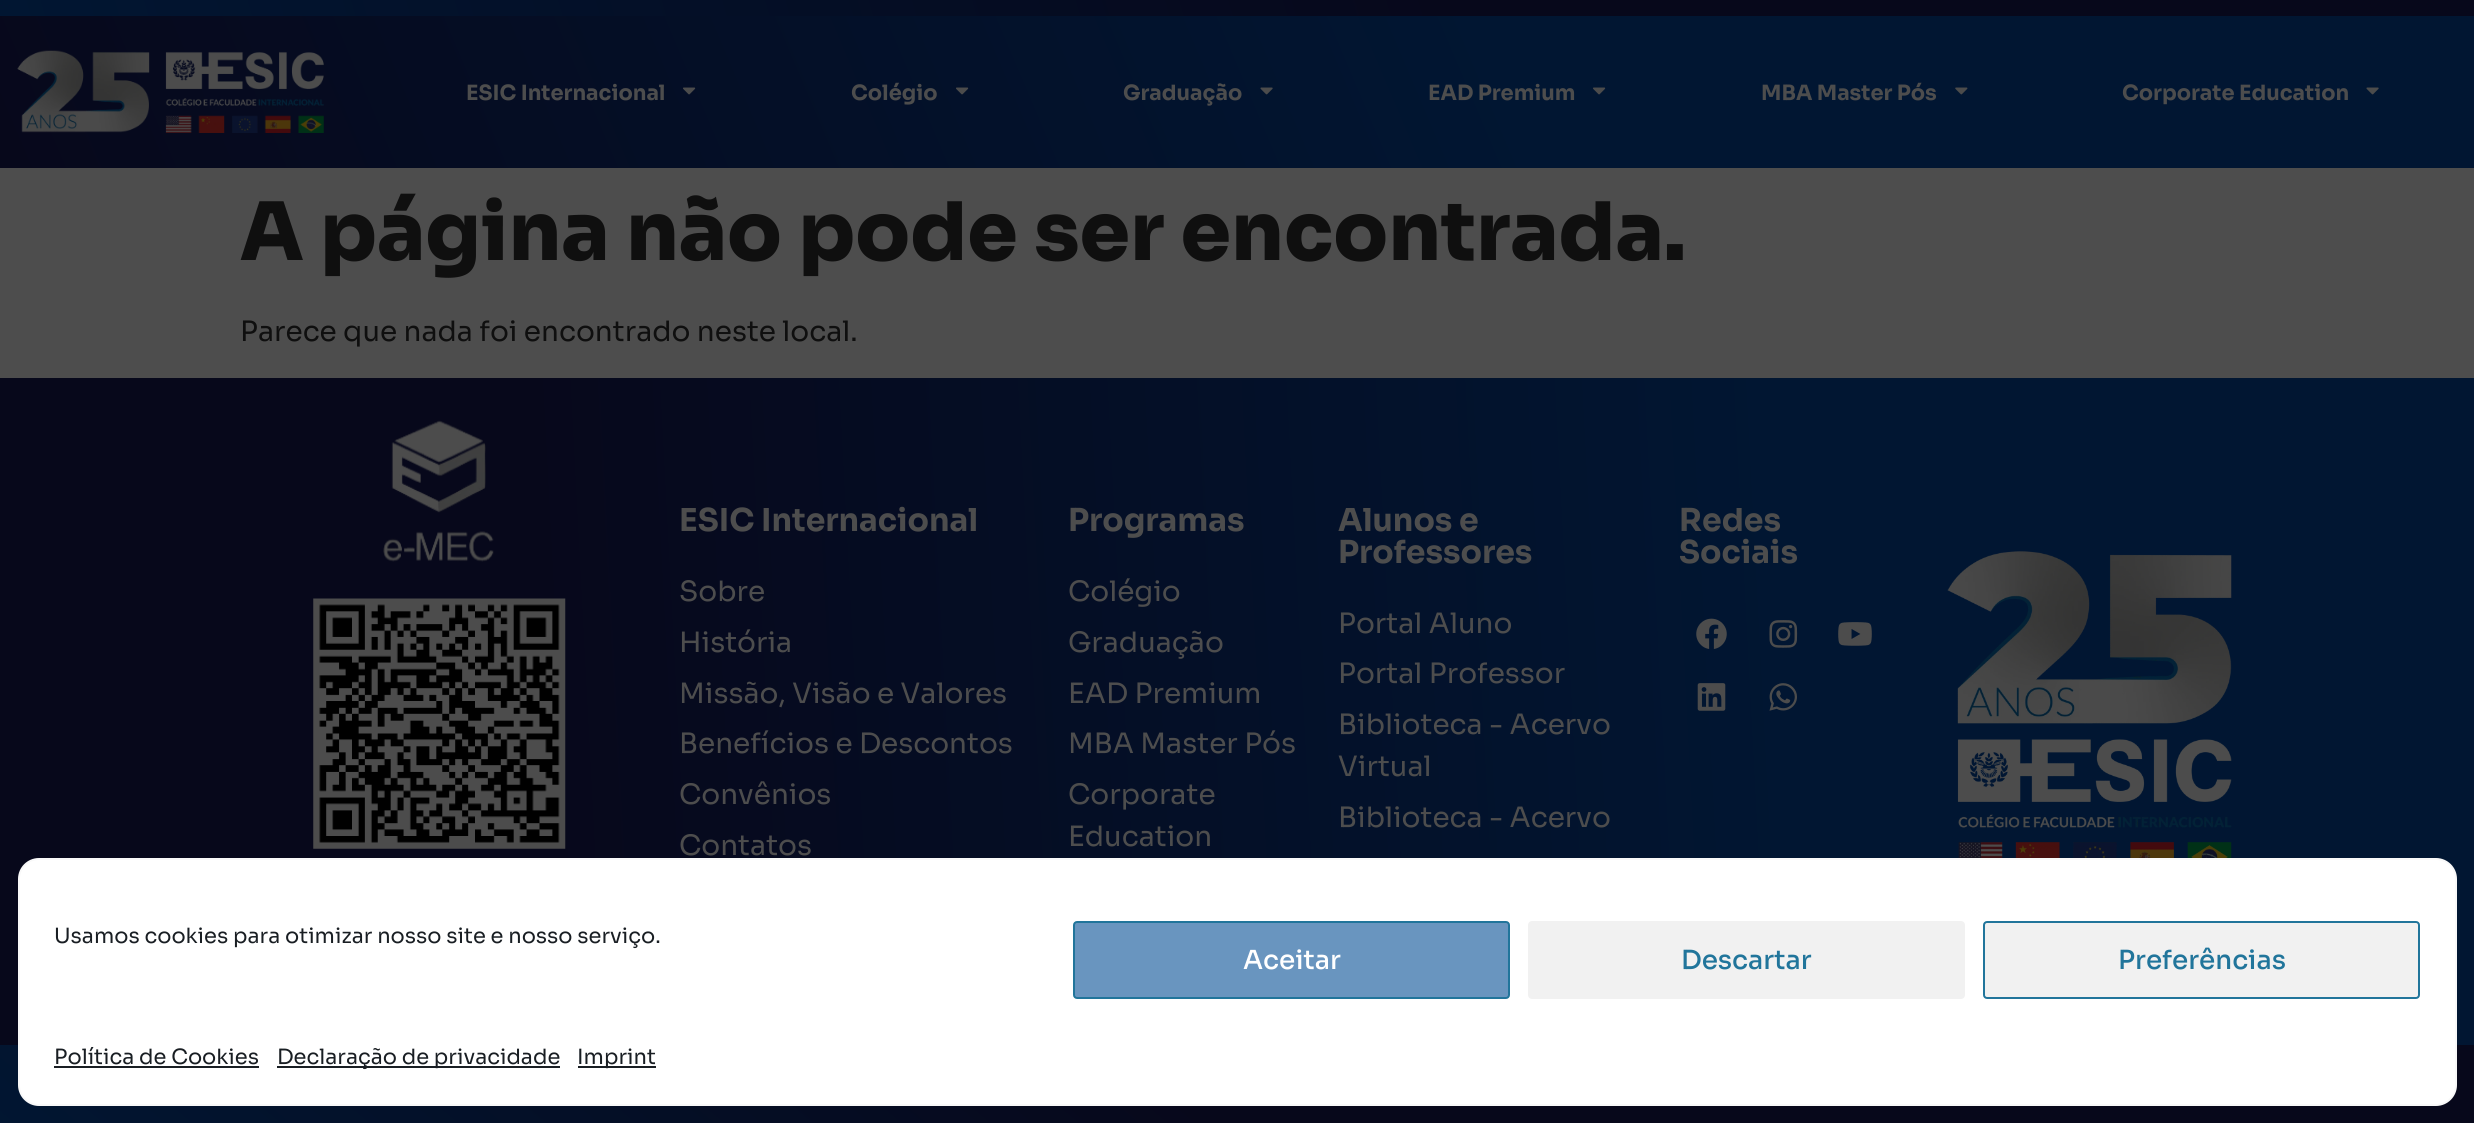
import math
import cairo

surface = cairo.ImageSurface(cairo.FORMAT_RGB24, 2474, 1123)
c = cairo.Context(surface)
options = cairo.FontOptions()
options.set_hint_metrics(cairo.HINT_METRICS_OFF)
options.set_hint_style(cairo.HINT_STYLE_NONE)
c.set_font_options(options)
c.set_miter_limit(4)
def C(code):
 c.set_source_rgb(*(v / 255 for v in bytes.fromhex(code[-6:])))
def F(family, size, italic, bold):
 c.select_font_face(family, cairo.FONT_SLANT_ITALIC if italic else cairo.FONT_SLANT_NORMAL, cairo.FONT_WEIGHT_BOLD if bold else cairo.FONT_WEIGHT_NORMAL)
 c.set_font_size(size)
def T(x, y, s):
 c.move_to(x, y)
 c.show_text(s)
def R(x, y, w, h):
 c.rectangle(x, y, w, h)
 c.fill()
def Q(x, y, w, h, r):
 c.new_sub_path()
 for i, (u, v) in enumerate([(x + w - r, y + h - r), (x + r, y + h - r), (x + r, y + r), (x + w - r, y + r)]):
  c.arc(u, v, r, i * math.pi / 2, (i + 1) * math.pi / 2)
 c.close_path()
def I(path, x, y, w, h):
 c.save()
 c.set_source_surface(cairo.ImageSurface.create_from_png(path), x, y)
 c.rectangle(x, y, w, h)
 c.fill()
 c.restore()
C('4d4d4d')
c.paint()
gradient = cairo.LinearGradient(2394,-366,81,297)
gradient.add_color_stop_rgba(.42,0.027,0.031,0.106,1)
gradient.add_color_stop_rgba(1,0.004,0.086,0.196,1)
c.set_source(gradient)
R(0,0,2474,16)
gradient = cairo.LinearGradient(162,548,2313,-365)
gradient.add_color_stop_rgba(0,0.027,0.031,0.106,1)
gradient.add_color_stop_rgba(.61,0.004,0.086,0.196,1)
c.set_source(gradient)
R(0,16,2474,152)
I('1.png',17,50,307,83)
F('Sora',21,0,1)
C('4d4d4d')
T(466,100,'ESIC Internacional')
I('2.png',683,87,13,8)
T(851,100,'Colégio')
I('3.png',956,87,13,8)
T(1123,100,'Graduação')
I('4.png',1260,87,13,8)
T(1428,100,'EAD Premium')
I('5.png',1593,87,13,8)
T(1761,100,'MBA Master Pós')
I('6.png',1955,87,13,8)
T(2122,100,'Corporate Education')
I('7.png',2366,87,13,8)
F('Sora ExtraBold',80.5,0,0)
C('0f0f0f')
T(240,260,'A página não pode ser encontrada.')
F('Sora',28,0,0)
T(240,341,'Parece que nada foi encontrado neste local.')
gradient = cairo.LinearGradient(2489,646,-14,777)
gradient.add_color_stop_rgba(.28,0.004,0.086,0.196,1)
gradient.add_color_stop_rgba(.78,0.027,0.031,0.106,1)
c.set_source(gradient)
R(0,378,2474,667)
I('8.png',383,420,111,142)
I('9.png',313,598,253,251)
F('Sora',31.5,0,1)
C('4d4d4d')
T(679,531,'ESIC Internacional')
F('Sora',28,0,0)
T(679,601,'Sobre')
T(679,652,'História')
T(679,703,'Missão, Visão e Valores')
T(679,753,'Benefícios e Descontos')
T(679,804,'Convênios')
T(679,855,'Contatos')
F('Sora',31.5,0,1)
T(1068,531,'Programas')
F('Sora',28,0,0)
T(1068,601,'Colégio')
T(1068,652,'Graduação')
T(1068,703,'EAD Premium')
T(1068,753,'MBA Master Pós')
T(1068,804,'Corporate')
T(1068,846,'Education')
F('Sora',31.5,0,1)
T(1338,531,'Alunos e')
T(1338,563,'Professores')
F('Sora',28,0,0)
T(1338,633,'Portal Aluno')
T(1338,683,'Portal Professor')
T(1338,734,'Biblioteca - Acervo')
T(1338,776,'Virtual')
T(1338,827,'Biblioteca - Acervo')
F('Sora',31.5,0,1)
T(1679,531,'Redes')
T(1679,563,'Sociais')
I('10.png',1696,618,31,31)
I('11.png',1769,620,29,28)
I('12.png',1838,622,34,24)
I('13.png',1697,683,29,28)
I('14.png',1769,683,28,28)
I('15.png',1947,551,285,307)
gradient = cairo.LinearGradient(702,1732,1773,456)
gradient.add_color_stop_rgba(0,0.004,0.086,0.196,1)
gradient.add_color_stop_rgba(.48,0.027,0.031,0.106,1)
c.set_source(gradient)
R(0,1045,2474,78)
C('ffffff')
Q(19,859,2437,246,20)
c.fill_preserve()
C('f9f9f9')
c.stroke()
F('Sora',21,0,0)
C('191e23')
T(54,943,'Usamos cookies para otimizar nosso site e nosso serviço.')
C('6995bf')
Q(1074,922,435,76,3)
c.fill_preserve()
C('21759b')
c.stroke()
F('Sora Medium',26.25,0,0)
C('ffffff')
T(1243,969,'Aceitar')
C('f1f1f1')
Q(1529,922,435,76,3)
c.fill_preserve()
c.stroke()
C('21759b')
T(1681,969,'Descartar')
C('f1f1f1')
Q(1984,922,435,76,3)
c.fill_preserve()
C('21759b')
c.stroke()
T(2118,969,'Preferências')
F('Sora',21,0,0)
C('191e23')
T(54,1064,'Política de Cookies')
R(54,1066,205,2)
R(277,1066,283,2)
T(277,1064,'Declaração de privacidade')
R(578,1066,78,2)
T(577,1064,'Imprint')
surface.write_to_png('o.png')
